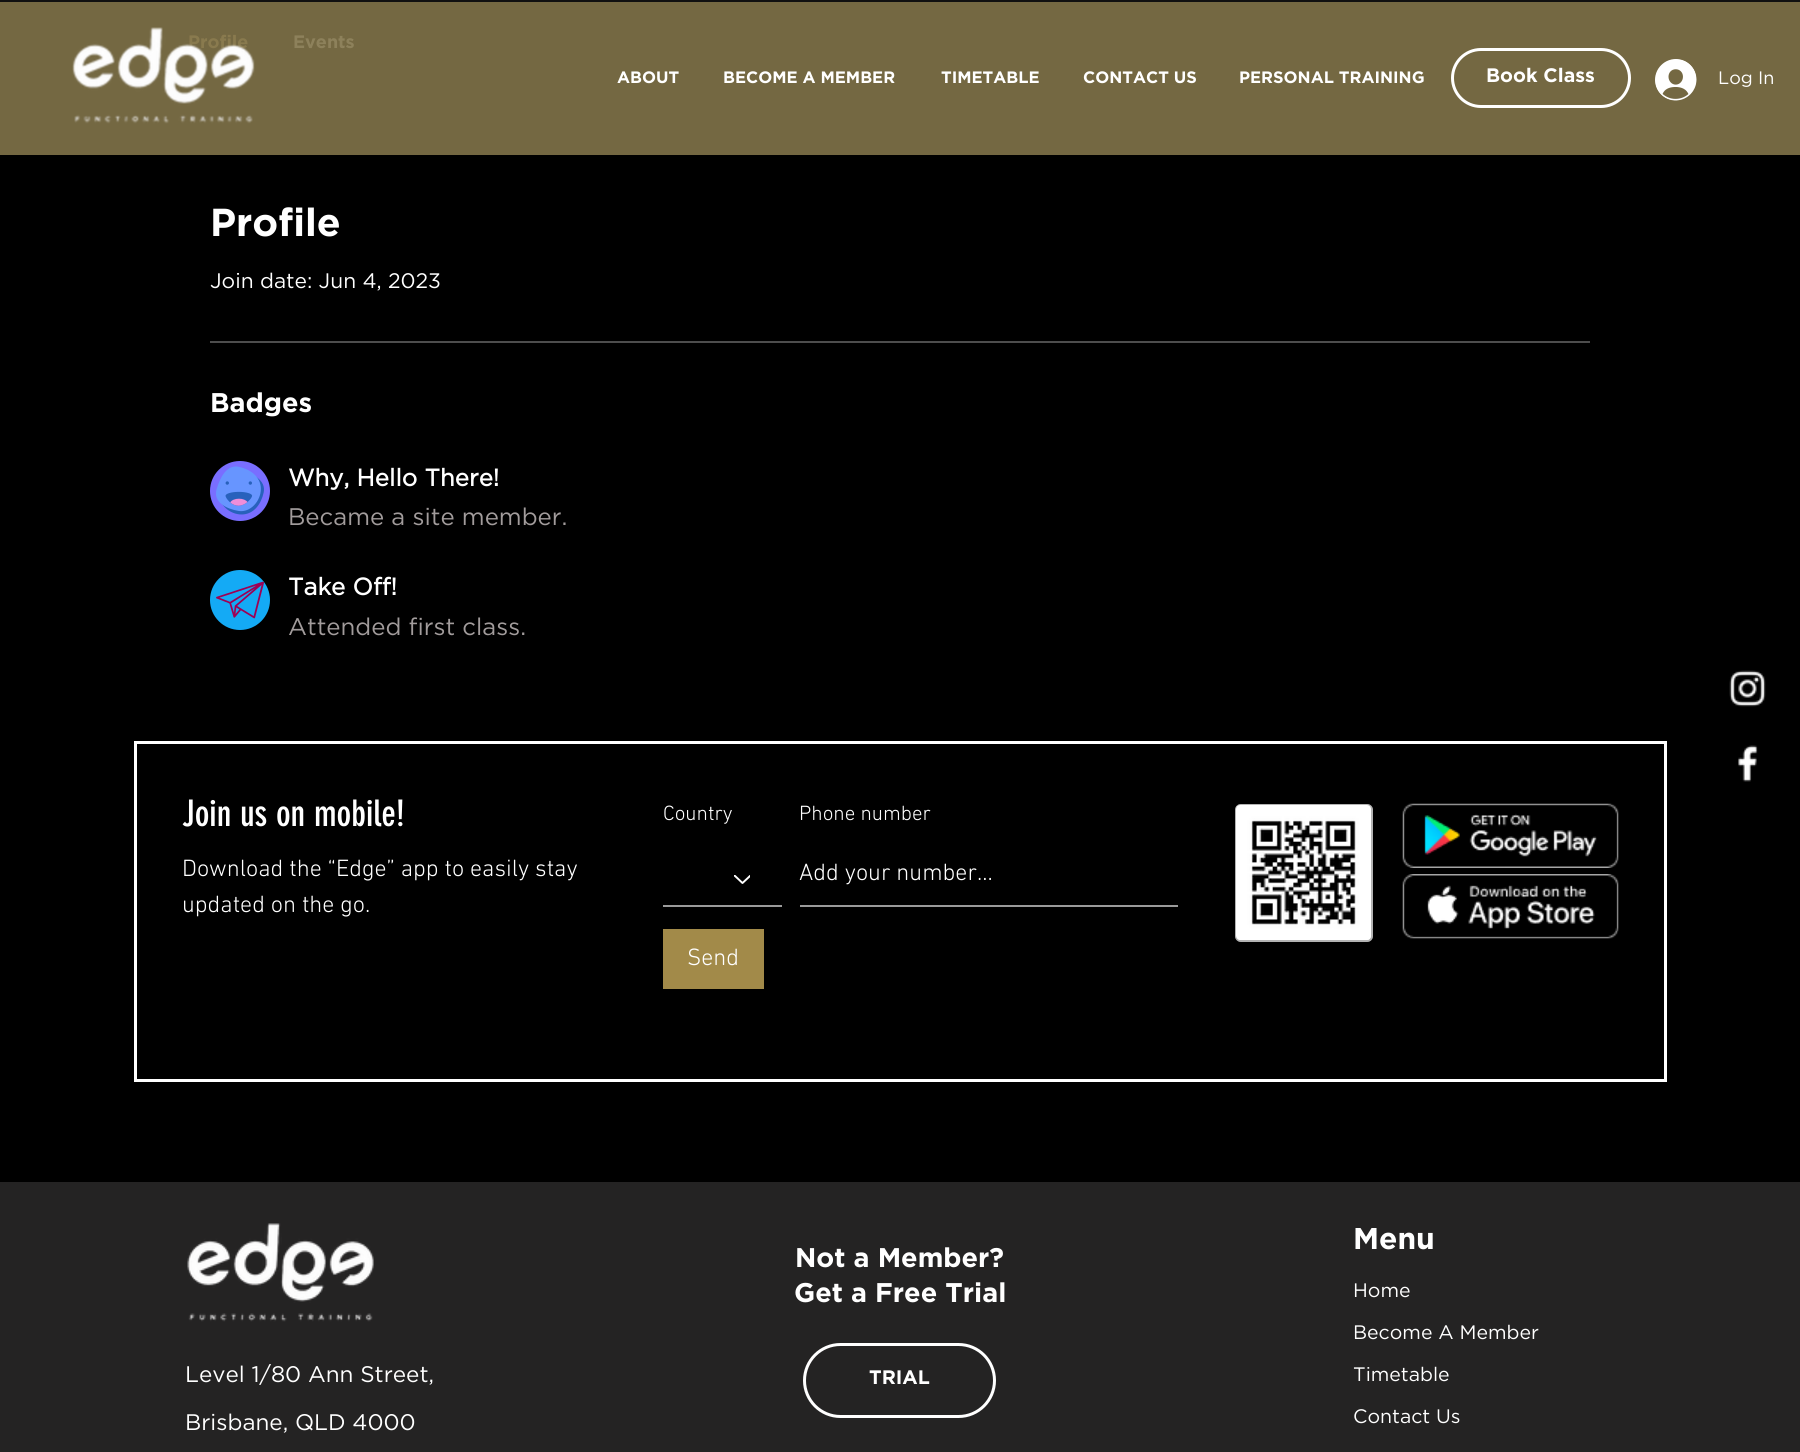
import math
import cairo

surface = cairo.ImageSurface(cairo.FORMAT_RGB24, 1800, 1452)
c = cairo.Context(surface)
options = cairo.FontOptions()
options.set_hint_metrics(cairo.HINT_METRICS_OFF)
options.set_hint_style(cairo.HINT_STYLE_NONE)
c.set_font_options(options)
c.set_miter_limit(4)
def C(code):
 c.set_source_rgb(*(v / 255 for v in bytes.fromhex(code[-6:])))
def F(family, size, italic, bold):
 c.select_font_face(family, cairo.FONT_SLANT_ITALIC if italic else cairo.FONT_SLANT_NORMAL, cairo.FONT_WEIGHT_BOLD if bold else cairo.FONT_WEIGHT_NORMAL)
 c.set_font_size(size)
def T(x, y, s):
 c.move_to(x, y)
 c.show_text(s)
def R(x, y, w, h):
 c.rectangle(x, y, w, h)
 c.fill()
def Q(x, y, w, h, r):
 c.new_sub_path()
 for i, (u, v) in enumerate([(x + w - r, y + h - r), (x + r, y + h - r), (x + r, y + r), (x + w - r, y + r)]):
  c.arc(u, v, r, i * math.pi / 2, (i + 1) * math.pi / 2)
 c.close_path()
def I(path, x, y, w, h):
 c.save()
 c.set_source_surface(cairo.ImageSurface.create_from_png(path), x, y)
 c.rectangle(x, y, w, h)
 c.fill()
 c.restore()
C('000000')
c.paint()
C('101010')
R(0,0,1800,2)
C('746842')
R(0,2,1800,153)
F('Gotham',18,0,1)
C('897a4e')
T(188,48,'Profile')
C('8d815b')
T(293,48,'Events')
I('1.png',72,27,183,97)
F('Gotham',16.5,0,1)
C('ffffff')
T(617,83,'ABOUT')
T(723,83,'BECOME A MEMBER')
T(941,83,'TIMETABLE')
T(1083,83,'CONTACT US')
T(1239,83,'PERSONAL TRAINING')
Q(1452.5,49.5,177,57,28.5)
c.set_line_width(3)
c.stroke()
F('Gotham',19.5,0,1)
T(1486,82,'Book Class')
I('2.png',1655,59,42,42)
F('Gotham',18,0,0)
T(1718,84,'Log In')
F('Gotham',39,0,1)
T(210,236,'Profile')
F('Gotham',21,0,0)
T(210,288,'Join date: Jun 4, 2023')
C('4d4d4d')
R(210,341,1380,2)
F('Gotham',27,0,1)
C('ffffff')
T(210,412,'Badges')
C('796eff')
c.new_path()
c.arc(240,491,30,0,2 * math.pi)
c.fill()
I('3.png',216,466,48,49)
F('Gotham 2',24,0,1)
C('ffffff')
T(288,486,'Why, Hello There!')
F('Gotham',24,0,0)
C('a29c9c')
T(288,525,'Became a site member.')
C('14aaf5')
c.new_path()
c.arc(240,600,30,0,2 * math.pi)
c.fill()
I('4.png',216,581,48,38)
F('Gotham 2',24,0,1)
C('ffffff')
T(288,595,'Take Off!')
F('Gotham',24,0,0)
C('a29c9c')
T(288,635,'Attended first class.')
c.rectangle(135.5,742.5,1530,338)
C('ffffff')
c.stroke()
F('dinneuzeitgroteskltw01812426',36,0,0)
T(182,826,'Join us on mobile!')
F('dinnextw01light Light',24,0,0)
T(182,876,'Download the “Edge” app to easily stay')
T(182,912,'updated on the go.')
F('dinnextw01light Light',21,0,0)
T(663,820,'Country')
I('5.png',734,875,16,9)
C('9a9a9a')
R(663,905,119,2)
C('ffffff')
T(799,820,'Phone number')
C('9a9a9a')
R(800,905,378,2)
F('dinnextw01light Light',24,0,0)
C('ffffff')
T(799,880,'Add your number...')
C('a28a49')
R(663,929,101,60)
C('ffffff')
T(687,965,'Send')
Q(1235,804,138,138,6)
c.fill()
Q(1236,805,136,136,5)
c.set_source_rgba(0,0,0,0.3)
c.set_line_width(2)
c.stroke()
I('6.png',1236,805,135,135)
I('7.png',1402,803,217,65)
I('8.png',1402,874,217,65)
I('9.png',1729,670,37,37)
I('10.png',1738,745,20,37)
C('242323')
R(0,1182,1800,270)
F('Gotham',27,0,1)
C('ffffff')
T(795,1267,'Not a Member?')
T(794,1302,'Get a Free Trial')
Q(804.5,1344.5,190,72,36)
c.set_line_width(3)
c.stroke()
F('Gotham',19.5,0,1)
T(869,1384,'TRIAL')
F('Gotham',30,0,1)
T(1353,1249,'Menu')
F('Gotham',19.5,0,0)
T(1353,1297,'Home')
T(1353,1339,'Become A Member')
T(1353,1381,'Timetable')
T(1353,1423,'Contact Us')
I('11.png',187,1223,187,99)
F('Gotham',22.5,0,0)
T(185,1382,'Level 1/80 Ann Street,')
T(185,1430,'Brisbane, QLD 4000')
surface.write_to_png('o.png')
